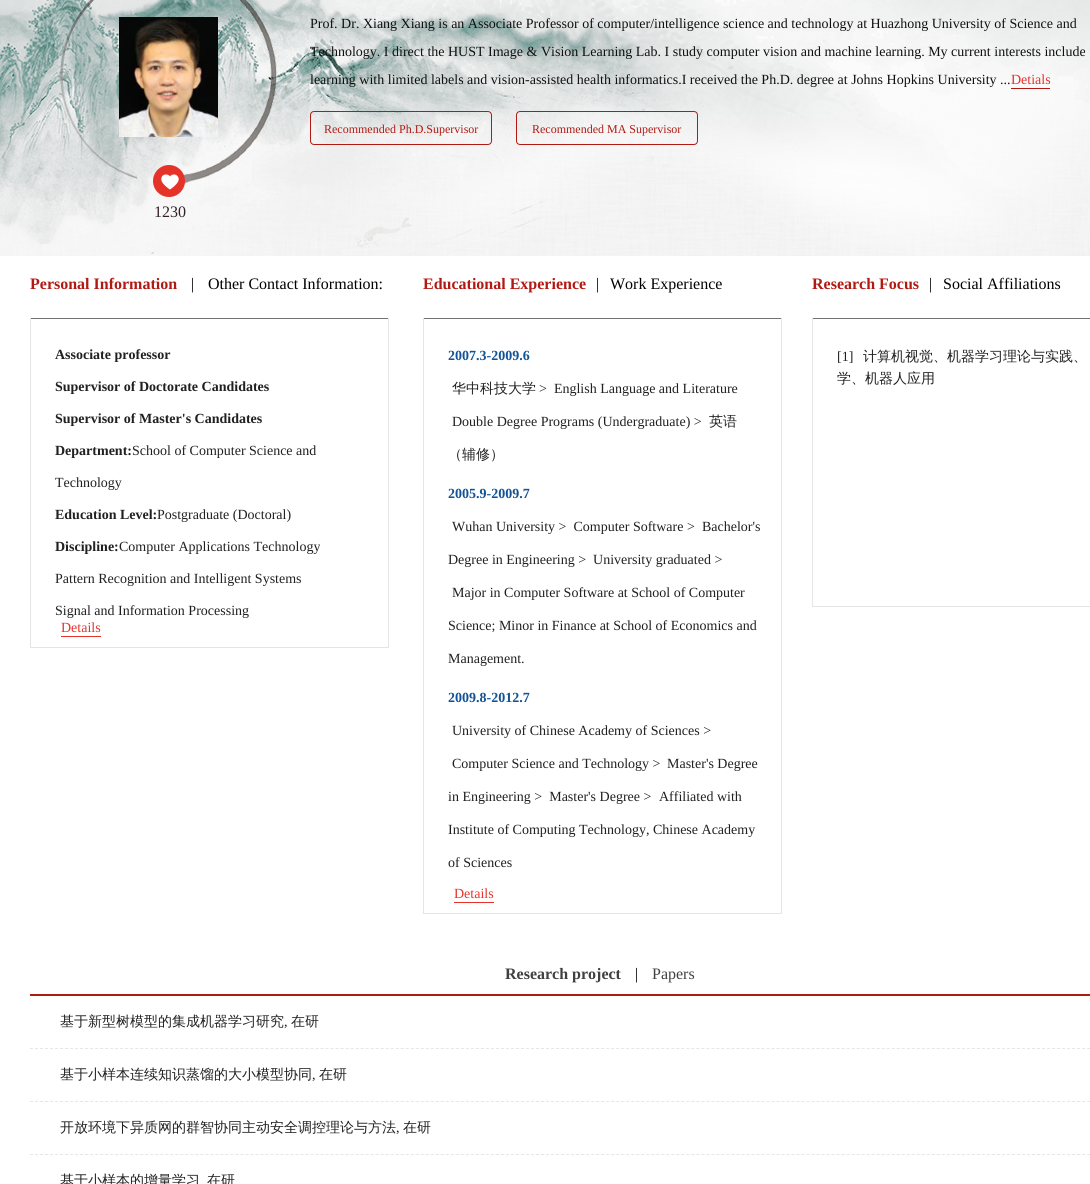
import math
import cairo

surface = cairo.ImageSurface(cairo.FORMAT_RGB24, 1090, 1184)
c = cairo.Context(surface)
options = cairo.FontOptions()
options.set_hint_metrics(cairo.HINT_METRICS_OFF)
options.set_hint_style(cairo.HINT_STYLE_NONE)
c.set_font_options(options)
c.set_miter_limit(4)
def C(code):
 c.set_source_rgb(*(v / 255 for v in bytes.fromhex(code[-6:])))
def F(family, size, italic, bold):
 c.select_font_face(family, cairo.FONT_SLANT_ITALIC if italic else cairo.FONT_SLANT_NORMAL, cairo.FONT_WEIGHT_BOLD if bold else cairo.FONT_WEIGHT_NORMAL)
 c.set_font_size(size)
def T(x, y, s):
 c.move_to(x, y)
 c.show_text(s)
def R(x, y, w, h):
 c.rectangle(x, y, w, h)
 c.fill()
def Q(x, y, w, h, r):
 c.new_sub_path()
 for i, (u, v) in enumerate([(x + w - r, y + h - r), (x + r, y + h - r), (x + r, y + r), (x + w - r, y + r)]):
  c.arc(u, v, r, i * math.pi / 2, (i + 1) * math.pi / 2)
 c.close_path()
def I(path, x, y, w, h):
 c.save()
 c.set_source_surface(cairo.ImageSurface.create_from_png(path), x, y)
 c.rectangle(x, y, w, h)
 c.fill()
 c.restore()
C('ffffff')
c.paint()
I('1.png',0,0,1090,256)
F('Liberation Serif',14,0,0)
C('101010')
T(310,28,'Prof. Dr. Xiang Xiang is an Associate Professor of computer/intelligence science and technology at Huazhong University of Science and')
T(310,56,'Technology. I direct the HUST Image & Vision Learning Lab. I study computer vision and machine learning. My current interests include')
T(310,84,'learning with limited labels and vision-assisted health informatics.I received the Ph.D. degree at Johns Hopkins University ...')
C('e5332a')
T(1011,84,'Detials')
C('b11a13')
R(1011,88,39,1)
Q(310.5,111.5,181,33,3.5)
c.set_line_width(1)
c.stroke()
F('Liberation Serif',12,0,0)
T(324,133,'Recommended Ph.D.Supervisor')
Q(516.5,111.5,181,33,3.5)
c.stroke()
T(532,133,'Recommended MA Supervisor')
I('2.png',60,0,217,184)
I('3.png',119,17,99,120)
I('4.png',153,165,32,32)
I('5.png',161,174,18,16)
F('Liberation Serif',16,0,0)
C('322024')
T(154,217,'1230')
F('Liberation Serif',16,0,1)
C('b11a13')
T(30,289,'Personal Information')
F('Liberation Serif',16,0,0)
C('000000')
T(191,289,'|')
T(208,289,'Other Contact Information:')
C('727272')
R(30,318,359,1)
C('e5e5e5')
R(388,318,1,330)
R(30,647,359,1)
R(30,318,1,330)
F('Liberation Serif',14,0,1)
C('202020')
T(55,359,'Associate professor')
T(55,391,'Supervisor of Doctorate Candidates')
T(55,423,'Supervisor of Master\'s Candidates')
T(55,455,'Department:')
F('Liberation Serif',14,0,0)
T(132,455,'School of Computer Science and')
T(55,487,'Technology')
F('Liberation Serif',14,0,1)
T(55,519,'Education Level:')
F('Liberation Serif',14,0,0)
T(157,519,'Postgraduate (Doctoral)')
F('Liberation Serif',14,0,1)
T(55,551,'Discipline:')
F('Liberation Serif',14,0,0)
T(119,551,'Computer Applications Technology')
T(55,583,'Pattern Recognition and Intelligent Systems')
T(55,615,'Signal and Information Processing')
C('e5332a')
R(61,636,40,1)
T(61,632,'Details')
F('Liberation Serif',16,0,1)
C('b11a13')
T(423,289,'Educational Experience')
F('Liberation Serif',16,0,0)
C('000000')
T(596,289,'|')
T(610,289,'Work Experience')
C('727272')
R(423,318,359,1)
C('e5e5e5')
R(781,318,1,596)
R(423,913,359,1)
R(423,318,1,596)
F('Liberation Serif',14,0,1)
C('125395')
T(448,360,'2007.3-2009.6')
F('WenQuanYi Zen Hei Medium',14,0,0)
C('202020')
T(452,393,'华中科技大学')
F('Liberation Serif',14,0,0)
T(539,393,'>  English Language and Literature')
T(452,426,'Double Degree Programs (Undergraduate) >')
F('WenQuanYi Zen Hei Medium',14,0,0)
T(709,426,'英语')
T(448,459,'（辅修）')
F('Liberation Serif',14,0,1)
C('125395')
T(448,498,'2005.9-2009.7')
F('Liberation Serif',14,0,0)
C('202020')
T(452,531,'Wuhan University >  Computer Software >')
T(702,531,'Bachelor\'s')
T(448,564,'Degree in Engineering >  University graduated >')
T(452,597,'Major in Computer Software at School of Computer')
T(448,630,'Science; Minor in Finance at School of Economics and')
T(448,663,'Management.')
F('Liberation Serif',14,0,1)
C('125395')
T(448,702,'2009.8-2012.7')
F('Liberation Serif',14,0,0)
C('202020')
T(452,735,'University of Chinese Academy of Sciences >')
T(452,768,'Computer Science and Technology >')
T(667,768,'Master\'s Degree')
T(448,801,'in Engineering >  Master\'s Degree >')
T(659,801,'Affiliated with')
T(448,834,'Institute of Computing Technology, Chinese Academy')
T(448,867,'of Sciences')
C('e5332a')
R(454,902,40,1)
T(454,898,'Details')
F('Liberation Serif',16,0,1)
C('b11a13')
T(812,289,'Research Focus')
F('Liberation Serif',16,0,0)
C('000000')
T(929,289,'|')
T(943,289,'Social Affiliations')
C('727272')
R(812,318,278,1)
C('e5e5e5')
R(812,606,278,1)
R(812,318,1,289)
F('Liberation Serif',14,0,0)
C('202020')
T(837,361,'[1]')
F('WenQuanYi Zen Hei Medium',14,0,0)
T(863,361,'计算机视觉、机器学习理论与实践、')
T(837,383,'学、机器人应用')
C('b11a13')
R(30,994,1060,2)
F('Liberation Serif',16,0,1)
C('404040')
T(505,979,'Research project')
F('Liberation Serif',16,0,0)
C('000000')
T(635,979,'|')
C('404040')
T(652,979,'Papers')
c.new_path()
c.move_to(30,1048.5)
c.line_to(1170,1048.5)
C('e6e6e6')
c.set_dash([3,2.01])
c.stroke()
F('WenQuanYi Zen Hei Medium',14,0,0)
C('202020')
T(60,1026,'基于新型树模型的集成机器学习研究')
F('Liberation Serif',14,0,0)
T(284,1026,',')
F('WenQuanYi Zen Hei Medium',14,0,0)
T(291,1026,'在研')
c.new_path()
c.move_to(30,1101.5)
c.line_to(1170,1101.5)
C('e6e6e6')
c.stroke()
C('202020')
T(60,1079,'基于小样本连续知识蒸馏的大小模型协同')
F('Liberation Serif',14,0,0)
T(312,1079,',')
F('WenQuanYi Zen Hei Medium',14,0,0)
T(319,1079,'在研')
c.new_path()
c.move_to(30,1154.5)
c.line_to(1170,1154.5)
C('e6e6e6')
c.stroke()
C('202020')
T(60,1132,'开放环境下异质网的群智协同主动安全调控理论与方法')
F('Liberation Serif',14,0,0)
T(396,1132,',')
F('WenQuanYi Zen Hei Medium',14,0,0)
T(403,1132,'在研')
T(60,1185,'基于小样本的增量学习')
T(207,1185,'在研')
surface.write_to_png('o.png')
